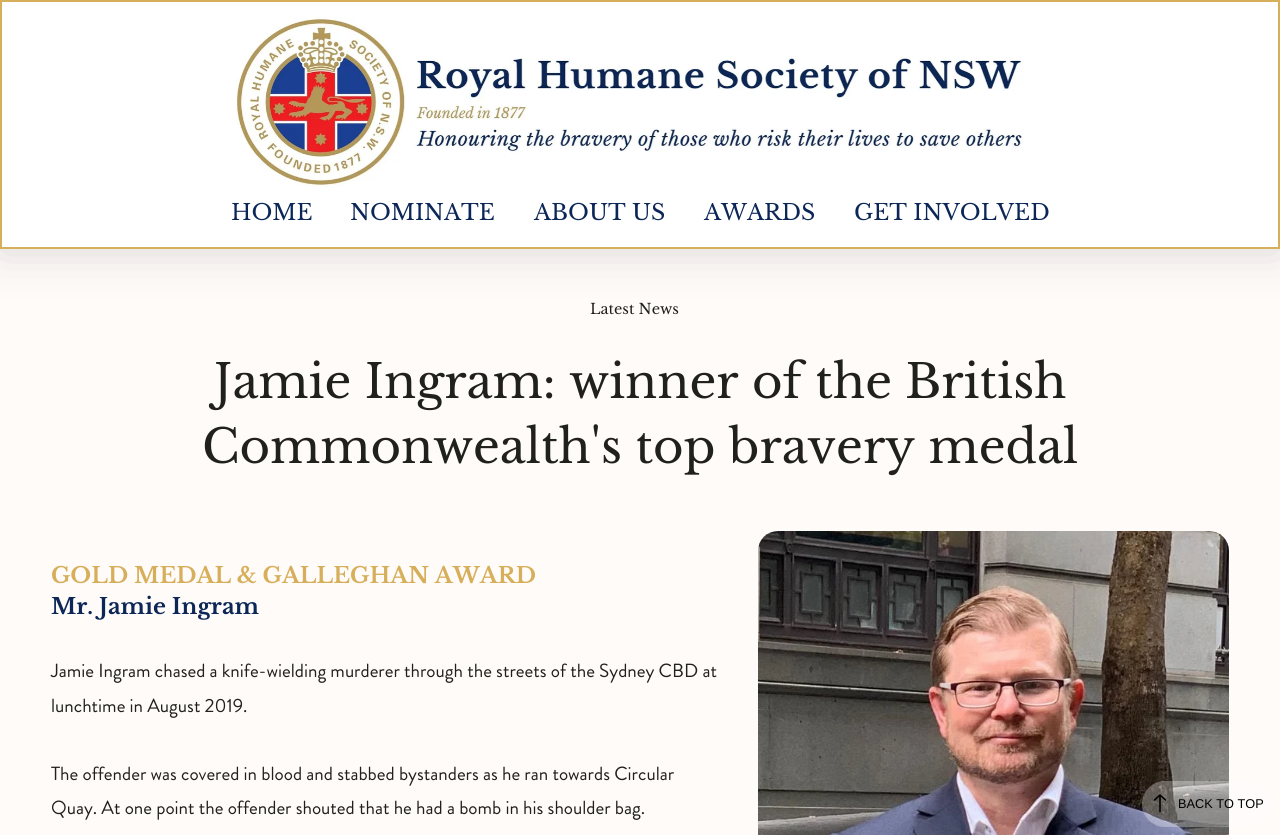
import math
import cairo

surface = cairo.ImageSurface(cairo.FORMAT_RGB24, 1280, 835)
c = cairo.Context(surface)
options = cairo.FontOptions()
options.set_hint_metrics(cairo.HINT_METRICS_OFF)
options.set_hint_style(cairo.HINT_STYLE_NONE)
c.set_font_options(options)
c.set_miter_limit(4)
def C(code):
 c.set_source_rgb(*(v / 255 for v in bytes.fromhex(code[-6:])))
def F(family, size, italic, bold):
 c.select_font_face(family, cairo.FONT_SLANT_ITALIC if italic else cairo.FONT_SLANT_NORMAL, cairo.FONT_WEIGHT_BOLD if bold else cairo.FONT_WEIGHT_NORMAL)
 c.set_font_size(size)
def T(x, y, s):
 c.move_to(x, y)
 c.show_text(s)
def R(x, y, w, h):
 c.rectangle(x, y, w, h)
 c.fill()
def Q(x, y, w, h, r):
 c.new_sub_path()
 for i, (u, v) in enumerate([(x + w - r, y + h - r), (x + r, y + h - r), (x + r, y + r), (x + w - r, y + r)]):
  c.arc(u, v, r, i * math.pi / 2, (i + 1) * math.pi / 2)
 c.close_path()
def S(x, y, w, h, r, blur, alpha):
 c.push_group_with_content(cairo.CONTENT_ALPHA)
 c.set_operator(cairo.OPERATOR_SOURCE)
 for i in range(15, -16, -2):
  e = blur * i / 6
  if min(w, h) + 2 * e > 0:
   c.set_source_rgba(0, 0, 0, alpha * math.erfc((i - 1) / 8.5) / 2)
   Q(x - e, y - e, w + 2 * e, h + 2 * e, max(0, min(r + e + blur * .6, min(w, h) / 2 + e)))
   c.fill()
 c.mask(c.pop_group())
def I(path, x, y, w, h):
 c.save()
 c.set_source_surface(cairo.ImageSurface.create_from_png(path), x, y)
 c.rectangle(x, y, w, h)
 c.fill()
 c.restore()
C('fffbf9')
c.paint()
C('ffffff')
R(2,2,1276,245)
c.save()
c.rectangle(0,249,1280,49)
c.clip()
C('dedad8')
S(0,4,1280,249,0,22,1)
c.restore()
c.rectangle(1,1,1278,247)
C('d7af5b')
c.stroke()
I('1.png',236,16,788,171)
F('Libre Baskerville',22.1,0,0)
C('0c2757')
T(231,220,'HOME')
T(350,220,'NOMINATE')
T(534,220,'ABOUT US')
T(704,220,'AWARDS')
T(854,220,'GET INVOLVED')
F('Libre Baskerville',14.5,0,0)
C('20201d')
T(590,314,'Latest News')
F('Libre Baskerville',46.75,0,0)
T(214,398,'Jamie Ingram: winner of the British')
T(202,463,'Commonwealth\'s top bravery medal')
F('Libre Baskerville',22.1,0,1)
C('d7af5b')
T(51,583,'GOLD MEDAL & GALLEGHAN AWARD')
C('0c2757')
T(51,614,'Mr. Jamie Ingram')
F('Brandon Grotesque',19.05,0,0)
C('20201d')
T(51,677,'Jamie Ingram chased a knife-wielding murderer through the streets of the Sydney CBD at')
T(51,712,'lunchtime in August 2019.')
T(51,780,'The offender was covered in blood and stabbed bystanders as he ran towards Circular')
T(51,814,'Quay. At one point the offender shouted that he had a bomb in his shoulder bag.')
I('2.png',758,531,471,304)
c.set_source_rgba(0.98,0.98,0.98,0.3)
Q(1142,781,130,46,23)
c.fill()
c.new_path()
c.move_to(1160,797)
c.line_to(1160,811.5)
c.move_to(1165.5,800)
c.line_to(1160,795)
c.line_to(1154.5,800)
C('000000')
c.set_line_width(1.6)
c.set_line_cap(cairo.LINE_CAP_ROUND)
c.set_line_join(cairo.LINE_JOIN_ROUND)
c.stroke()
F('Liberation Sans',12.75,0,0)
T(1178,808,'BACK TO TOP')
surface.write_to_png('o.png')
